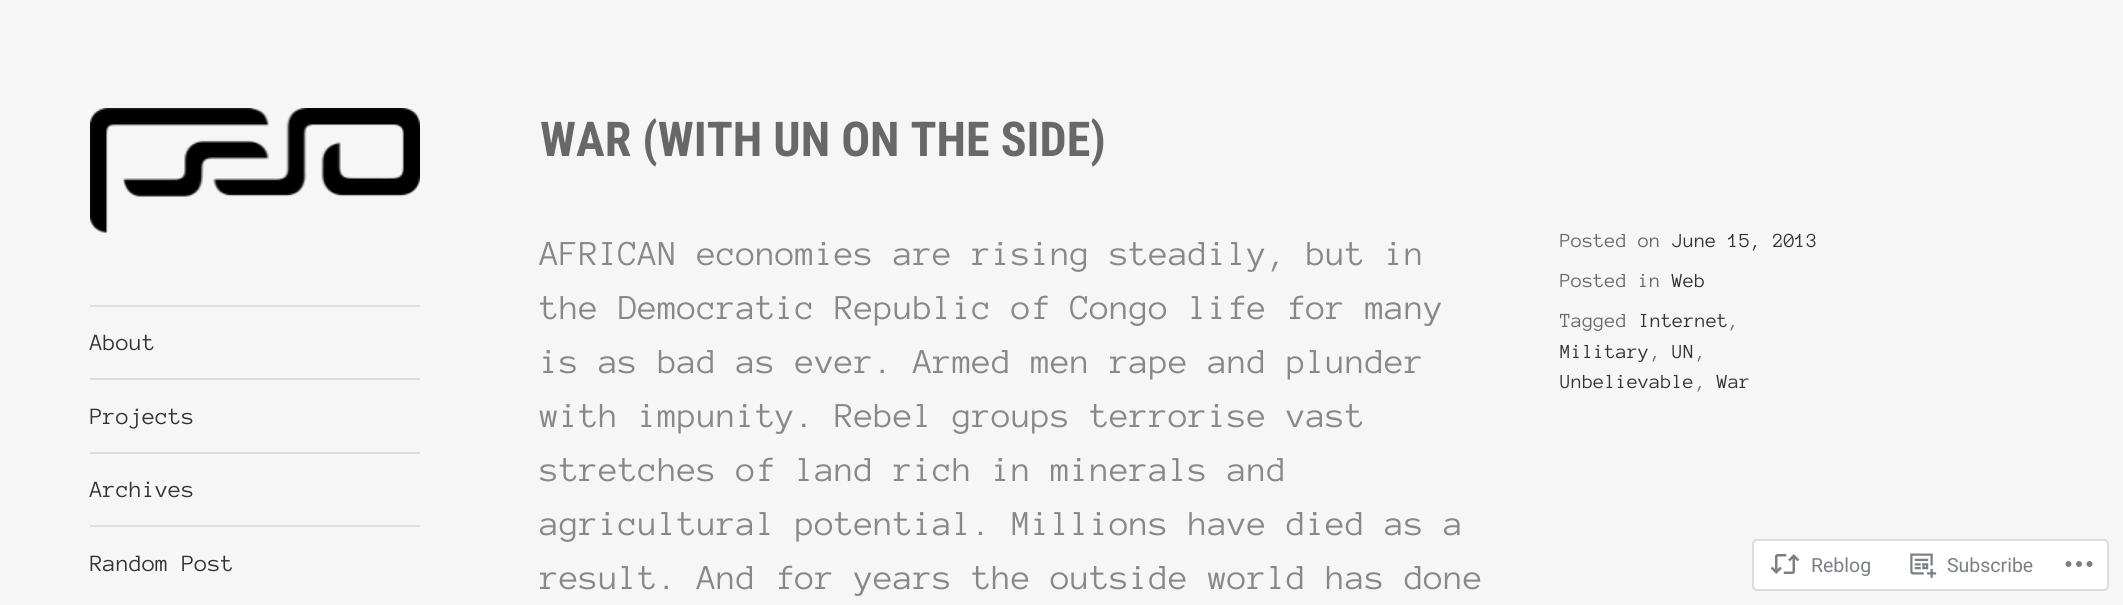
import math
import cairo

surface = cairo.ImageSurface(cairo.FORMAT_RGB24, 2123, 605)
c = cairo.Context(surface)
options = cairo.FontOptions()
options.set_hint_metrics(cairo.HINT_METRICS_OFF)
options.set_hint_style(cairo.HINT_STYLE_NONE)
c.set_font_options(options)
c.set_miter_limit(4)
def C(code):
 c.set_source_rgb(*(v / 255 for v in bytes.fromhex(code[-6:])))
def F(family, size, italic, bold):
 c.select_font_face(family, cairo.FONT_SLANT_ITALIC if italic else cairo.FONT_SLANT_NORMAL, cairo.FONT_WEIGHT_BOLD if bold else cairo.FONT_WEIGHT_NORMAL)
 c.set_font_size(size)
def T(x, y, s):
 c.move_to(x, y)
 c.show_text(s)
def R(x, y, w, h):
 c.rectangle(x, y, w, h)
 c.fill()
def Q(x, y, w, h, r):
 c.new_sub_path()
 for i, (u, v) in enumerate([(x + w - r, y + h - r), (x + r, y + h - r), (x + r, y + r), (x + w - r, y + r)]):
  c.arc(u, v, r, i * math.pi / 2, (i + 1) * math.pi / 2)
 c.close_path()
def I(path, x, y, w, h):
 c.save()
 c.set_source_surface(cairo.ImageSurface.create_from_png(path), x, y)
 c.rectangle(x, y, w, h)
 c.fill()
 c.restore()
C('f6f6f6')
c.paint()
I('1.png',90,108,330,125)
C('dddddd')
R(90,305,330,2)
F('Anonymous Pro',24,0,0)
C('333333')
T(90,350,'About')
C('dddddd')
R(90,378,330,2)
C('333333')
T(90,424,'Projects')
C('dddddd')
R(90,452,330,2)
C('333333')
T(90,497,'Archives')
C('dddddd')
R(90,525,330,2)
C('333333')
T(90,571,'Random Post')
F('Roboto Condensed',48,0,1)
C('686868')
T(540,156,'WAR (WITH UN ON THE SIDE)')
F('Anonymous Pro',36,0,0)
C('888888')
T(540,265,'AFRICAN economies are rising steadily, but in')
T(540,319,'the Democratic Republic of Congo life for many')
T(540,373,'is as bad as ever. Armed men rape and plunder')
T(540,427,'with impunity. Rebel groups terrorise vast')
T(540,481,'stretches of land rich in minerals and')
T(540,535,'agricultural potential. Millions have died as a')
T(540,589,'result. And for years the outside world has done')
F('Anonymous Pro',20.5,0,0)
C('686868')
T(1560,247,'Posted on')
C('333333')
T(1672,247,'June 15, 2013')
C('686868')
T(1560,287,'Posted in')
C('333333')
T(1672,287,'Web')
C('686868')
T(1560,327,'Tagged')
C('333333')
T(1639,327,'Internet')
C('686868')
T(1728,327,',')
C('333333')
T(1560,358,'Military')
C('686868')
T(1650,358,',')
C('333333')
T(1672,358,'UN')
C('686868')
T(1695,358,',')
C('333333')
T(1560,388,'Unbelievable')
C('686868')
T(1695,388,',')
C('333333')
T(1717,388,'War')
C('ffffff')
Q(1753,540,355,50,4)
c.fill_preserve()
C('ddddde')
c.stroke()
I('2.png',1770,554,30,20)
F('Roboto',19.5,0,0)
C('7b7e84')
T(1811,572,'Reblog')
I('3.png',1910,553,27,25)
T(1947,572,'Subscribe')
I('4.png',2065,561,28,6)
surface.write_to_png('o.png')
